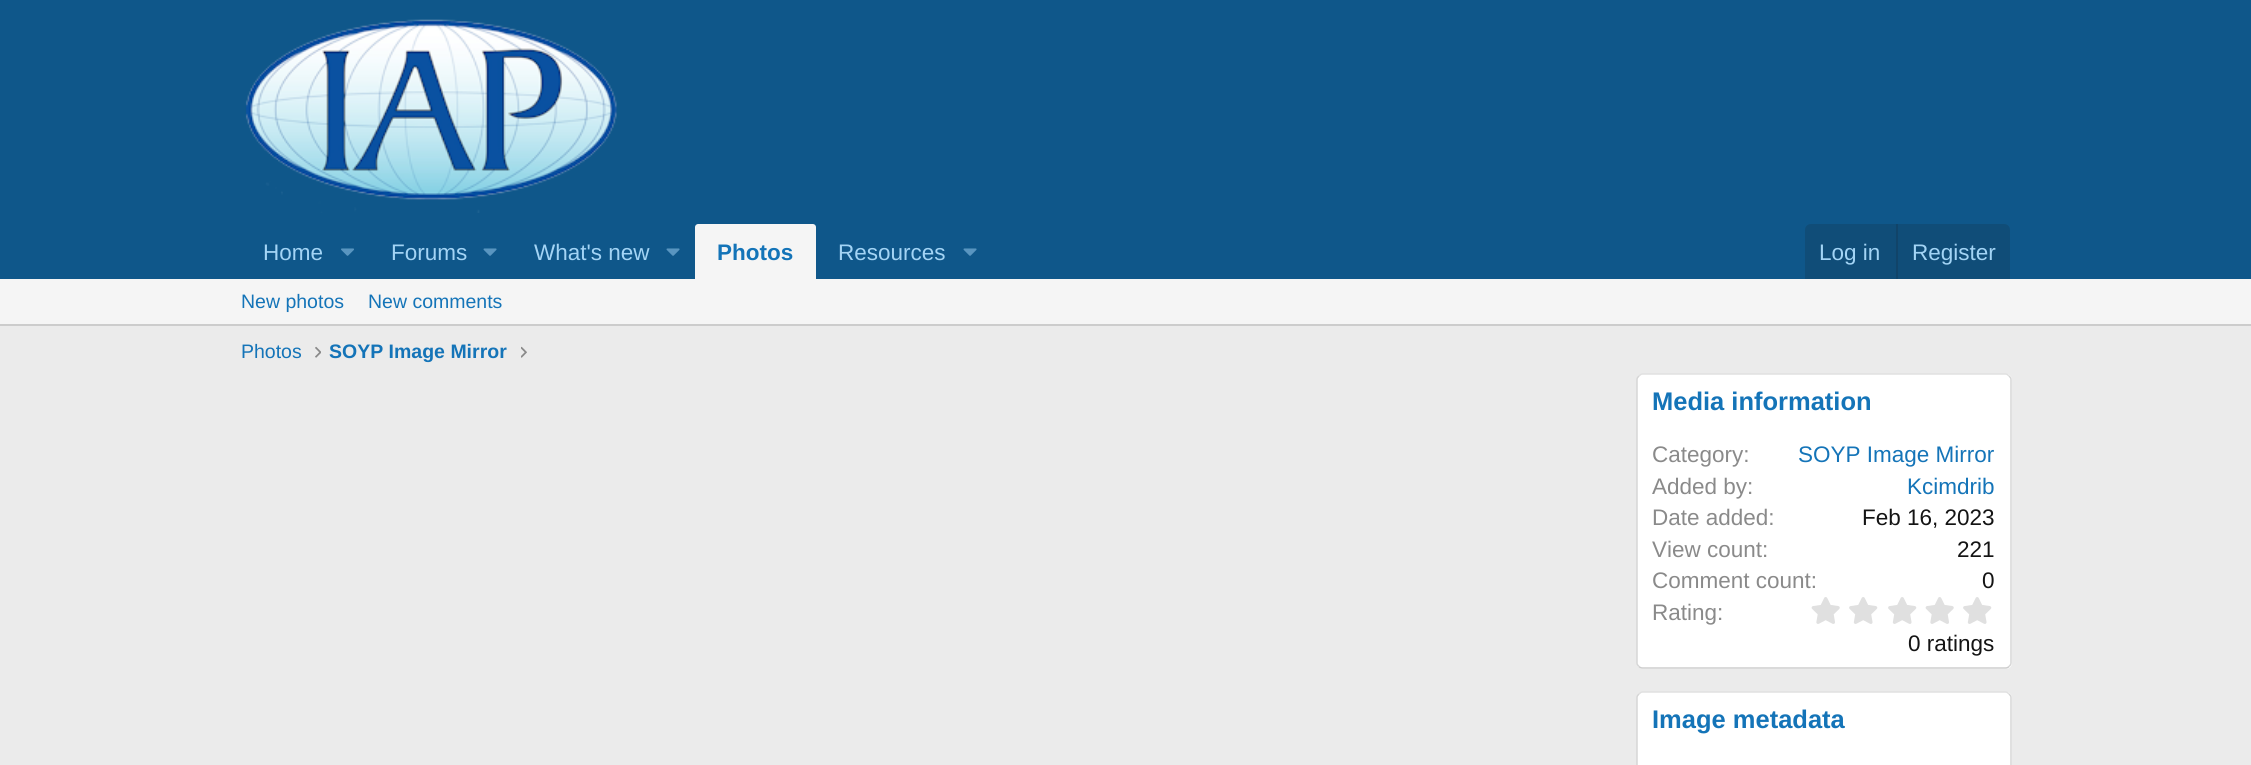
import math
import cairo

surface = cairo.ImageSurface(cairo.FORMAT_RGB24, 2251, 765)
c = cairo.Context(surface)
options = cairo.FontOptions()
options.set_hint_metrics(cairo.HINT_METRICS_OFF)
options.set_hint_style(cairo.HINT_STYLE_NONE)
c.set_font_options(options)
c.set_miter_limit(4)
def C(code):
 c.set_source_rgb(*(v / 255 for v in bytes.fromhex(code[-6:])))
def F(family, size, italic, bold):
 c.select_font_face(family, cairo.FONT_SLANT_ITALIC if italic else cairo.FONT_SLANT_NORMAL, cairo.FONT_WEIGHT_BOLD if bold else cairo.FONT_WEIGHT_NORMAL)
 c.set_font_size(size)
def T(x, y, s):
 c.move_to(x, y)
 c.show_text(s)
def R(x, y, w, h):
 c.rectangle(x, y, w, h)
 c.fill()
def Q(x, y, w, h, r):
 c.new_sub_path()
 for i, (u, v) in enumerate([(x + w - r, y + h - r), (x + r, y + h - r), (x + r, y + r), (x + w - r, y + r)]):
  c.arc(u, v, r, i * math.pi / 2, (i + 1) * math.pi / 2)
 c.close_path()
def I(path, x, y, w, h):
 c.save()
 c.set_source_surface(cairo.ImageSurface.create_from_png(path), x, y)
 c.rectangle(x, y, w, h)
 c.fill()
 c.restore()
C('ebebeb')
c.paint()
C('0f578a')
R(0,0,2251,279)
I('1.png',245,19,372,194)
F('Liberation Sans',22.5,0,0)
C('a3d4f5')
T(263,260,'Home')
I('2.png',341,248,13,8)
T(391,260,'Forums')
I('3.png',483,248,14,8)
T(534,260,'What\'s new')
I('3.png',666,248,14,8)
C('f5f5f5')
c.new_path()
c.move_to(698,224)
c.line_to(813,224)
c.curve_to(814.5,224,816,225.5,816,227)
c.line_to(816,279)
c.line_to(695,279)
c.line_to(695,227)
c.curve_to(695,225.5,696.5,224,698,224)
c.close_path()
c.fill()
F('Liberation Sans',22.5,0,1)
C('1474b8')
T(717,260,'Photos')
F('Liberation Sans',22.5,0,0)
C('a3d4f5')
T(838,260,'Resources')
I('3.png',963,248,14,8)
C('104d78')
c.new_path()
c.move_to(1811,224)
c.line_to(2004,224)
c.curve_to(2007.5,224,2010,226.5,2010,230)
c.line_to(2010,279)
c.line_to(1805,279)
c.line_to(1805,230)
c.curve_to(1805,226.5,1807.5,224,1811,224)
c.close_path()
c.fill()
C('a3d4f5')
T(1819,260,'Log in')
C('114469')
R(1896,224,2,55)
C('a3d4f5')
T(1912,260,'Register')
C('f5f5f5')
R(0,279,2251,45)
C('cccccc')
R(0,324,2251,2)
F('Liberation Sans',19.5,0,0)
C('1474b8')
T(241,308,'New photos')
T(368,308,'New comments')
T(241,358,'Photos')
I('4.png',315,346,6,12)
F('Liberation Sans',19.5,0,1)
T(329,358,'SOYP Image Mirror')
I('5.png',521,346,6,12)
C('ffffff')
Q(1637,374,375,295,6)
c.fill()
c.new_path()
c.move_to(1639,376)
c.curve_to(1640,375,1641,374,1642.5,374)
c.line_to(2005.5,374)
c.curve_to(2007,374,2008,375,2009,376)
C('e0e0e0')
c.set_line_width(1.5)
c.stroke()
c.new_path()
c.move_to(2009,376)
c.curve_to(2010,377,2011,378,2011,379.5)
c.line_to(2011,663)
c.curve_to(2011,664.5,2010,665.5,2009,666.5)
C('d6d6d6')
c.stroke()
c.new_path()
c.move_to(2009,666.5)
c.curve_to(2008,667.5,2007,668,2005.5,668)
c.line_to(1642.5,668)
c.curve_to(1641,668,1640,667.5,1639,666.5)
C('cccccc')
c.stroke()
c.new_path()
c.move_to(1639,666.5)
c.curve_to(1638,665.5,1637,664.5,1637,663)
c.line_to(1637,379.5)
c.curve_to(1637,378,1638,377,1639,376)
C('d6d6d6')
c.stroke()
F('Liberation Sans',25.5,0,1)
C('1474b8')
T(1652,410,'Media information')
F('Liberation Sans',22.5,0,0)
C('8a8a8a')
T(1652,462,'Category:')
C('1474b8')
T(1798,462,'SOYP Image Mirror')
C('8a8a8a')
T(1652,494,'Added by:')
C('1474b8')
T(1907,494,'Kcimdrib')
C('8a8a8a')
T(1652,525,'Date added:')
C('141414')
T(1862,525,'Feb 16, 2023')
C('8a8a8a')
T(1652,557,'View count:')
C('141414')
T(1957,557,'221')
C('8a8a8a')
T(1652,588,'Comment count:')
C('141414')
T(1982,588,'0')
C('8a8a8a')
T(1652,620,'Rating:')
I('6.png',1811,597,29,27)
I('7.png',1849,597,29,27)
I('7.png',1888,597,29,27)
I('6.png',1925,597,29,27)
I('7.png',1963,597,29,27)
C('141414')
T(1908,651,'0 ratings')
C('ffffff')
Q(1637,692,375,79,6)
c.fill()
c.new_path()
c.move_to(1639,694)
c.curve_to(1640,693,1641,692,1642.5,692)
c.line_to(2005.5,692)
c.curve_to(2007,692,2008,693,2009,694)
C('e0e0e0')
c.stroke()
c.new_path()
c.move_to(2009,694)
c.curve_to(2010,695,2011,696,2011,697.5)
c.line_to(2011,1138.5)
c.curve_to(2011,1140,2010,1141,2009,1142)
C('d6d6d6')
c.stroke()
c.new_path()
c.move_to(1639,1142)
c.curve_to(1638,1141,1637,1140,1637,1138.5)
c.line_to(1637,697.5)
c.curve_to(1637,696,1638,695,1639,694)
c.stroke()
F('Liberation Sans',25.5,0,1)
C('1474b8')
T(1652,728,'Image metadata')
surface.write_to_png('o.png')
